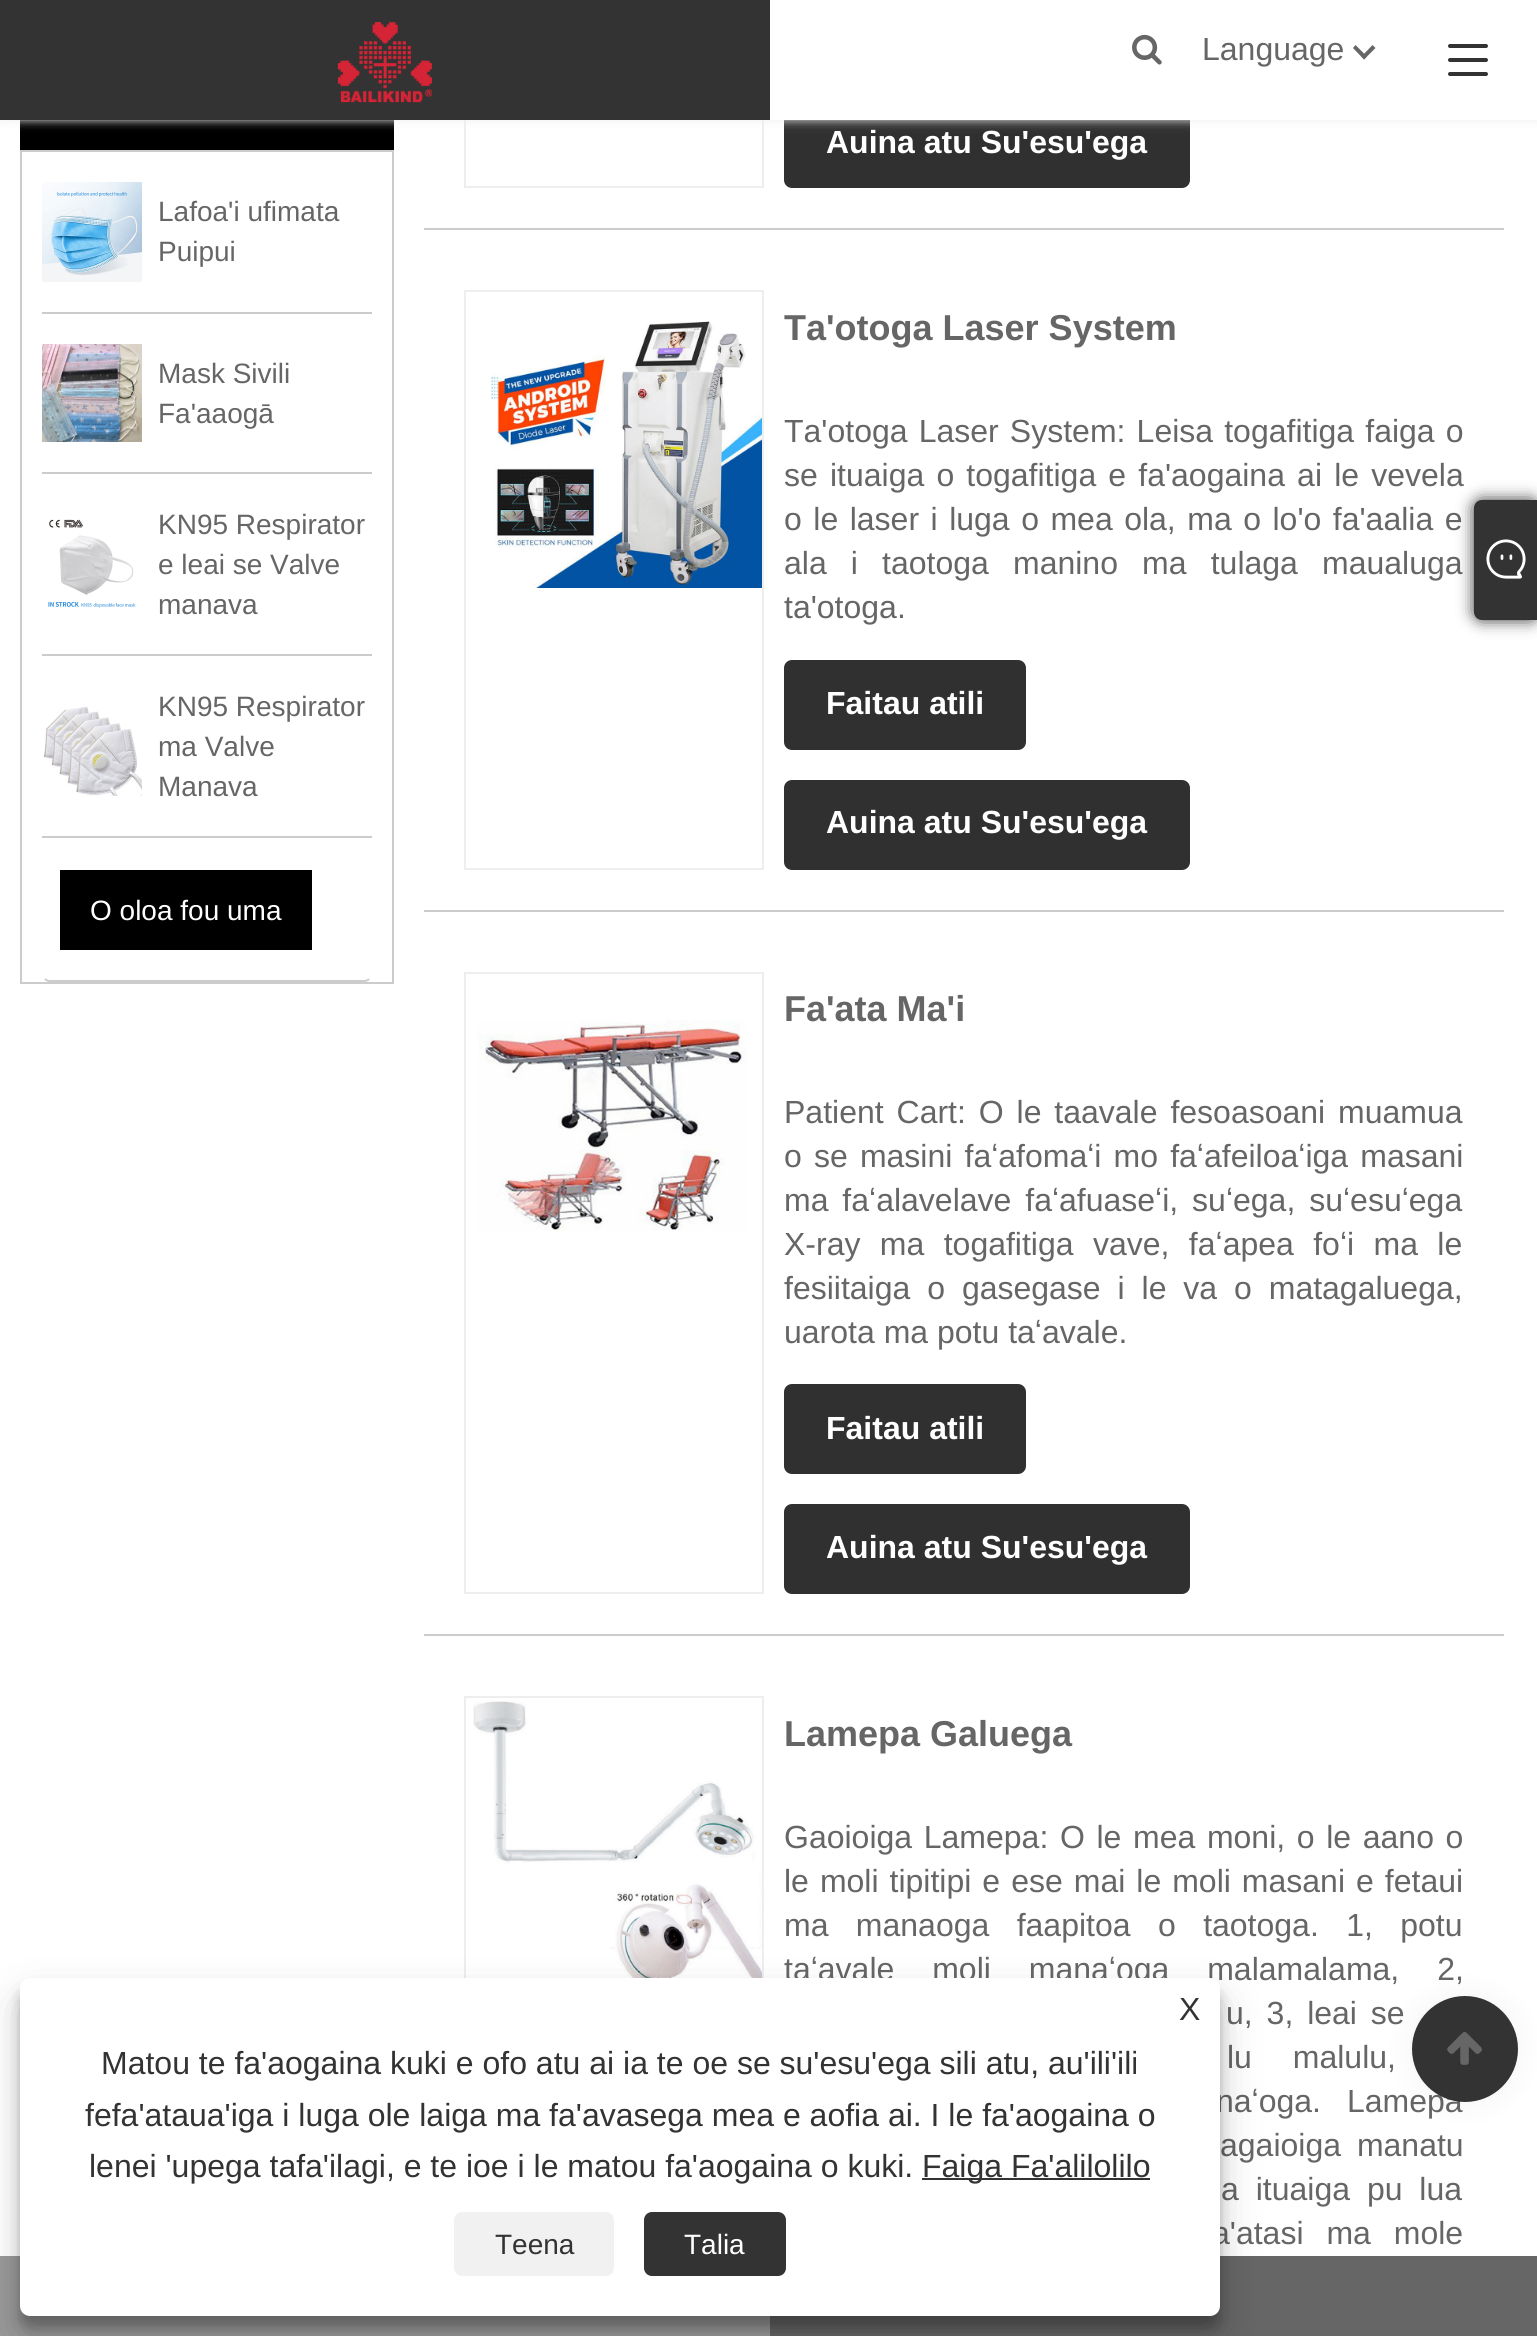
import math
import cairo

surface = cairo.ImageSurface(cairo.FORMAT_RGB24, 1537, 2336)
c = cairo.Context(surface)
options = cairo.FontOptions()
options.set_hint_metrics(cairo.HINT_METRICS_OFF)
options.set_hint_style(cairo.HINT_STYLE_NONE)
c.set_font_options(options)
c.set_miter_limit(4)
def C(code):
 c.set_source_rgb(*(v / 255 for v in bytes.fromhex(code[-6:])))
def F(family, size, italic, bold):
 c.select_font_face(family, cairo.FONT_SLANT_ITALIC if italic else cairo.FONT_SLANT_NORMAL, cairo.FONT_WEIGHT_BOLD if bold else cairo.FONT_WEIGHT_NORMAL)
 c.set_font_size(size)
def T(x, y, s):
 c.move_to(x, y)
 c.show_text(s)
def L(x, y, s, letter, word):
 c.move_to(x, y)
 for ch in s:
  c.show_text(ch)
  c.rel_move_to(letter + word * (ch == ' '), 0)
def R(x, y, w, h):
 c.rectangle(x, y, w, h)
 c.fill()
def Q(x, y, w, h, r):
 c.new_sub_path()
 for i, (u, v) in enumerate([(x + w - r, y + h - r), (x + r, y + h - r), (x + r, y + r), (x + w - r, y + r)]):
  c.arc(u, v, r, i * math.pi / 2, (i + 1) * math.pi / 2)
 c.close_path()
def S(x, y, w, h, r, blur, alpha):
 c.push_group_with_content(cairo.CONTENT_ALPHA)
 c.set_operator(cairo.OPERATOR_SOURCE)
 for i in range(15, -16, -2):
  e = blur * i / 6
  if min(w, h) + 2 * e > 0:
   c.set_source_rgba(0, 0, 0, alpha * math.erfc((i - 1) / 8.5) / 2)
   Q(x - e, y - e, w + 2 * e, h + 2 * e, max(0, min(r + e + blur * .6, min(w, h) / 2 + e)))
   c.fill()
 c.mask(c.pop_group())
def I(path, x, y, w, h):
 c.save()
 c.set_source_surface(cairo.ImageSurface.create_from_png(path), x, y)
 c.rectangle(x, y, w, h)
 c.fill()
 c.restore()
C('ffffff')
c.paint()
C('000000')
R(20,120,374,30)
c.rectangle(465,-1,298,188)
C('eeeeee')
c.stroke()
C('303030')
Q(784,98,406,90,8)
c.fill()
C('eeeeee')
S(0,0,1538,120,0,5,1)
C('ffffff')
R(770,0,767,120)
C('333333')
R(0,0,770,120)
I('1.png',337,22,95,81)
I('2.png',1132,34,30,31)
F('Liberation Sans',32,0,0)
C('666666')
T(1202,60,'Language')
c.new_path()
c.move_to(1361.5,56.5)
c.line_to(1372.5,45)
c.line_to(1375.5,48)
c.line_to(1364,59.5)
c.close_path()
c.fill()
c.new_path()
c.move_to(1353,48)
c.line_to(1355.5,45)
c.line_to(1367,56.5)
c.line_to(1364,59.5)
c.close_path()
c.fill()
C('333333')
Q(1448,44,40,4,2)
c.fill()
Q(1448,58,40,4,2)
c.fill()
Q(1448,72,40,4,2)
c.fill()
c.rectangle(21,151,372,832)
C('cccccc')
c.stroke()
R(42,312,330,2)
I('3.png',42,182,100,100)
F('Liberation Sans',28,0,0)
C('666666')
T(158,221,'Lafoa\'i ufimata')
T(158,261,'Puipui')
C('cccccc')
R(42,472,330,2)
I('4.png',42,344,100,98)
C('666666')
T(158,383,'Mask Sivili')
T(158,423,'Fa\'aaogā')
C('cccccc')
R(42,654,330,2)
I('5.png',48,519,88,89)
C('666666')
T(158,534,'KN95 Respirator')
T(158,574,'e leai se Valve')
T(158,614,'manava')
C('cccccc')
R(42,836,330,2)
I('6.png',43,706,99,90)
C('666666')
T(158,716,'KN95 Respirator')
T(158,756,'ma Valve')
T(158,796,'Manava')
c.new_path()
c.move_to(369,979)
c.curve_to(367.5,980.5,366,981,364,981)
c.line_to(50,981)
c.curve_to(48,981,46.5,980.5,45,979)
C('cccccc')
c.stroke()
C('000000')
R(60,870,252,80)
C('ffffff')
T(90,920,'O oloa fou uma')
C('cccccc')
R(424,228,1080,2)
F('Liberation Sans',32,0,1)
C('ffffff')
T(826,153,'Auina atu Su\'esu\'ega')
C('cccccc')
R(424,910,1080,2)
c.rectangle(465,291,298,578)
C('eeeeee')
c.stroke()
I('7.png',491,321,271,267)
F('Liberation Sans',36,0,1)
C('666666')
T(784,340,'Ta\'otoga Laser System')
F('Liberation Sans',32,0,0)
L(784,442,'Ta\'otoga Laser System: Leisa togafitiga faiga o',0,2.25)
L(784,486,'se ituaiga o togafitiga e fa\'aogaina ai le vevela',0,3.25)
L(784,530,'o le laser i luga o mea ola, ma o lo\'o fa\'aalia e',0,2.6)
L(784,574,'ala i taotoga manino ma tulaga maualuga',0,15.25)
T(784,618,'ta\'otoga.')
C('303030')
Q(784,660,242,90,8)
c.fill()
F('Liberation Sans',32,0,1)
C('ffffff')
T(826,714,'Faitau atili')
C('303030')
Q(784,780,406,90,8)
c.fill()
C('ffffff')
T(826,833,'Auina atu Su\'esu\'ega')
C('cccccc')
R(424,1634,1080,2)
c.rectangle(465,973,298,620)
C('eeeeee')
c.stroke()
I('8.png',478,1020,269,211)
F('Liberation Sans',36,0,1)
C('666666')
T(784,1021,'Fa\'ata Ma\'i')
F('Liberation Sans',32,0,0)
L(784,1123,'Patient Cart: O le taavale fesoasoani muamua',0,4)
L(784,1167,'o se masini faʻafomaʻi mo faʻafeiloaʻiga masani',0,3.25)
L(784,1211,'ma faʻalavelave faʻafuaseʻi, suʻega, suʻesuʻega',0,5)
L(784,1255,'X-ray ma togafitiga vave, faʻapea foʻi ma le',0,10.5)
L(784,1299,'fesiitaiga o gasegase i le va o matagaluega,',0,8)
T(784,1343,'uarota ma potu taʻavale.')
C('303030')
Q(784,1384,242,90,8)
c.fill()
F('Liberation Sans',32,0,1)
C('ffffff')
T(826,1439,'Faitau atili')
C('303030')
Q(784,1504,406,90,8)
c.fill()
C('ffffff')
T(826,1558,'Auina atu Su\'esu\'ega')
c.rectangle(465,1697,298,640)
C('eeeeee')
c.stroke()
I('9.png',473,1700,289,278)
F('Liberation Sans',36,0,1)
C('666666')
T(784,1746,'Lamepa Galuega')
F('Liberation Sans',32,0,0)
L(784,1848,'Gaoioiga Lamepa: O le mea moni, o le aano o',0,2.75)
L(784,1892,'le moli tipitipi e ese mai le moli masani e fetaui',0,2.1)
L(784,1936,'ma manaoga faapitoa o taotoga. 1, potu',0,18.5)
L(784,1980,'taʻavale moli manaʻoga malamalama, 2,',0,29)
L(1226,2024,'u, 3, leai se',0,5)
L(1227,2068,'lu malulu,',0,32)
L(1216,2112,'naʻoga. Lamepa',0,17)
L(1220,2156,'agaioiga manatu',0,7)
L(1221,2200,'a ituaiga pu lua',0,8)
L(1212,2244,'a\'atasi ma mole',0,14)
C('333333')
S(1474,500,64,120,8,8,1)
C('333333')
c.new_path()
c.move_to(1482,500)
c.line_to(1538,500)
c.line_to(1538,620)
c.line_to(1482,620)
c.curve_to(1477.5,620,1474,616.5,1474,612)
c.line_to(1474,508)
c.curve_to(1474,503.5,1477.5,500,1482,500)
c.close_path()
c.fill()
I('10.png',1486,539,40,40)
C('999999')
R(0,2256,770,80)
C('666666')
R(770,2256,767,80)
C('000000')
S(20,1990,1200,338,10,6,.23)
S(20,1998,1200,338,10,20,.19)
C('ffffff')
Q(20,1978,1200,338,10)
c.fill()
C('333333')
T(1179,2020,'X')
T(101,2074,'Matou te fa\'aogaina kuki e ofo atu ai ia te oe se su\'esu\'ega sili atu, au\'ili\'ili')
T(85,2126,'fefa\'ataua\'iga i luga ole laiga ma fa\'avasega mea e aofia ai. I le fa\'aogaina o')
T(89,2177,'lenei \'upega tafa\'ilagi, e te ioe i le matou fa\'aogaina o kuki.')
R(922,2178,228,2)
T(922,2177,'Faiga Fa\'alilolilo')
C('f1f1f1')
Q(454,2212,160,64,8)
c.fill()
F('Liberation Sans',28,0,0)
C('333333')
T(495,2254,'Teena')
Q(644,2212,142,64,8)
c.fill()
C('ffffff')
T(684,2254,'Talia')
C('000000')
S(1412,1996,106,106,53,15,.05)
C('333333')
c.arc(1465,2049,53,0,2 * math.pi)
c.fill()
I('11.png',1447,2032,35,33)
surface.write_to_png('o.png')
